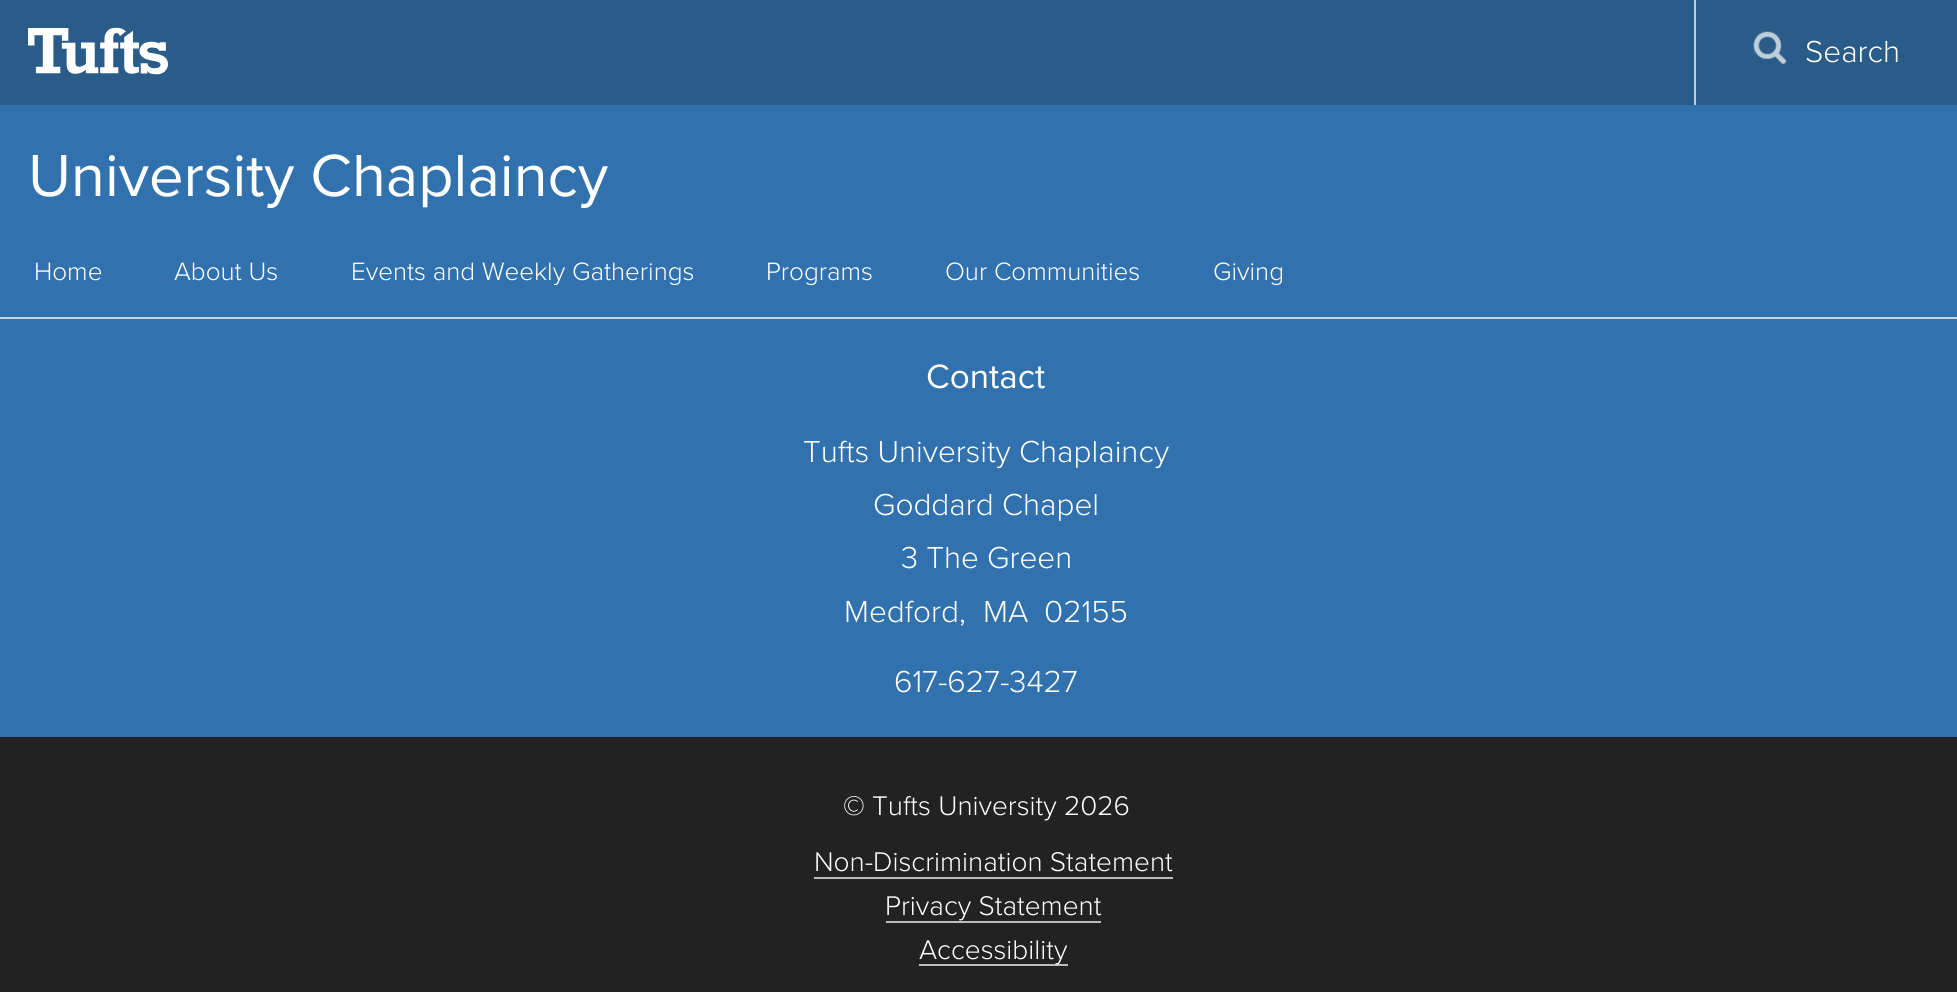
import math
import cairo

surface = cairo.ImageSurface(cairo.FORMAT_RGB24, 1957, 992)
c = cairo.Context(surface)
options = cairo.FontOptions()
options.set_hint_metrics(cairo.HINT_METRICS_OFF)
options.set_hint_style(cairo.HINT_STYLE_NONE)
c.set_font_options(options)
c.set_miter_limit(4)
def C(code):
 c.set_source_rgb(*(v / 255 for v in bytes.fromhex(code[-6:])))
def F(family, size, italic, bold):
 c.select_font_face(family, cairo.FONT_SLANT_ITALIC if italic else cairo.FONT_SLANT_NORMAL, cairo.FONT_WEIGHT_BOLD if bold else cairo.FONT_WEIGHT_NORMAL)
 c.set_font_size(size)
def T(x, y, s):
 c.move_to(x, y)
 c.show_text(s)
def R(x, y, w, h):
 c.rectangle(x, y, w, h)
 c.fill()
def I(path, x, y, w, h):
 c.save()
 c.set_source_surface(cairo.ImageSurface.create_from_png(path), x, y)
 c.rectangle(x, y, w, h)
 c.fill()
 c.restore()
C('3172ae')
c.paint()
C('2a5c89')
R(0,0,1957,105)
I('1.png',28,27,140,48)
C('bfcedc')
R(1694,0,2,105)
I('2.png',1753,31,34,33)
F('Proxima Nova Light',31.5,0,0)
C('ffffff')
T(1805,62,'Search')
F('Proxima Nova Light',26,0,0)
T(34,280,'Home')
T(174,280,'About Us')
T(351,280,'Events and Weekly Gatherings')
T(766,280,'Programs')
T(945,280,'Our Communities')
T(1213,280,'Giving')
C('c1d5e7')
R(0,317,1957,2)
F('Proxima Nova',61.5,0,0)
C('ffffff')
T(28,196,'University Chaplaincy')
F('Proxima Nova',35,0,0)
T(926,388,'Contact')
F('Proxima Nova Light',31.5,0,0)
T(803,462,'Tufts University Chaplaincy')
T(873,515,'Goddard Chapel')
T(901,568,'3 The Green')
T(844,622,'Medford,')
T(983,622,'MA')
T(1044,622,'02155')
T(894,692,'617-627-3427')
C('222222')
R(0,737,1957,255)
F('Proxima Nova Light',28,0,0)
C('ffffff')
T(843,815,'© Tufts University 2026')
C('bdbdbd')
R(814,877,359,2)
C('ffffff')
T(814,871,'Non-Discrimination Statement')
C('bdbdbd')
R(886,921,215,2)
C('ffffff')
T(885,915,'Privacy Statement')
C('bdbdbd')
R(919,964,149,2)
C('ffffff')
T(919,959,'Accessibility')
surface.write_to_png('o.png')
